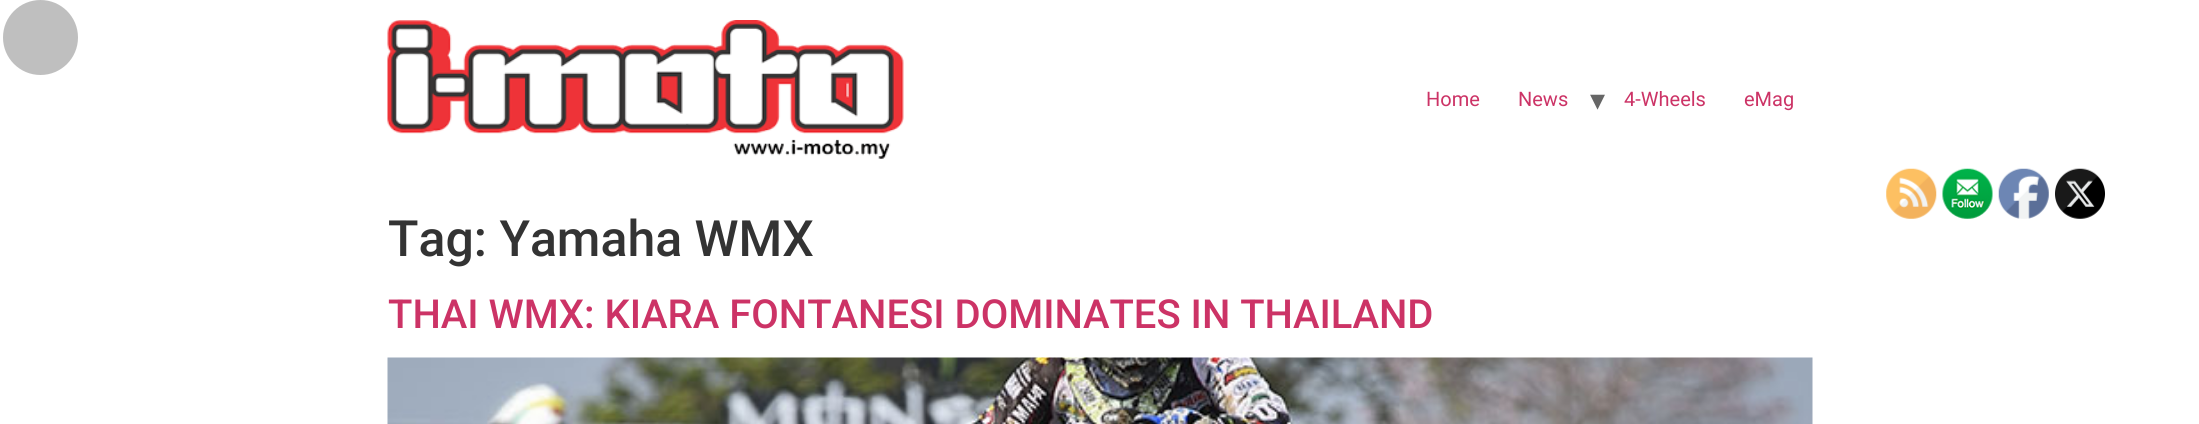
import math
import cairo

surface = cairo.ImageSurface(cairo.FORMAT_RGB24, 2199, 424)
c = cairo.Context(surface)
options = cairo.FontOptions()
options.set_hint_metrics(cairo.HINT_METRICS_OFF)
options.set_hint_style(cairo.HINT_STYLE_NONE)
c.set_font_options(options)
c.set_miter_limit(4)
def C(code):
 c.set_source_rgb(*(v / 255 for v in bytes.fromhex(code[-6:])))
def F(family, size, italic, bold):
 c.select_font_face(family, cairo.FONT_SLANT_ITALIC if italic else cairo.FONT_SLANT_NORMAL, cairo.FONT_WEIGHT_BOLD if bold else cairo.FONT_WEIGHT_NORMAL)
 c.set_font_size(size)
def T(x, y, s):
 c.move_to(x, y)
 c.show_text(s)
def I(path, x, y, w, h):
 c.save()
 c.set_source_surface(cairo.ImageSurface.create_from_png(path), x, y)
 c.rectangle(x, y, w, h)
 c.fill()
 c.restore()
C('ffffff')
c.paint()
C('bfbfbf')
c.arc(40.5,37.5,37.5,0,2 * math.pi)
c.fill()
I('1.png',387,20,517,139)
F('Roboto',20,0,0)
C('cc3366')
T(1426,106,'Home')
T(1518,106,'News')
F('DejaVu Sans',30,0,0)
C('666666')
T(1590,110,'▾')
F('Roboto',20,0,0)
C('cc3366')
T(1624,106,'4-Wheels')
T(1744,106,'eMag')
I('2.png',1886,168,51,51)
I('3.png',1942,168,51,51)
I('4.png',1998,168,51,51)
I('5.png',2055,168,50,51)
F('Roboto Medium',50,0,0)
C('333333')
T(388,256,'Tag: Yamaha WMX')
F('Roboto Medium',40,0,0)
C('cc3366')
T(388,328,'THAI WMX: KIARA FONTANESI DOMINATES IN THAILAND')
I('6.png',387,357,1426,67)
surface.write_to_png('o.png')
